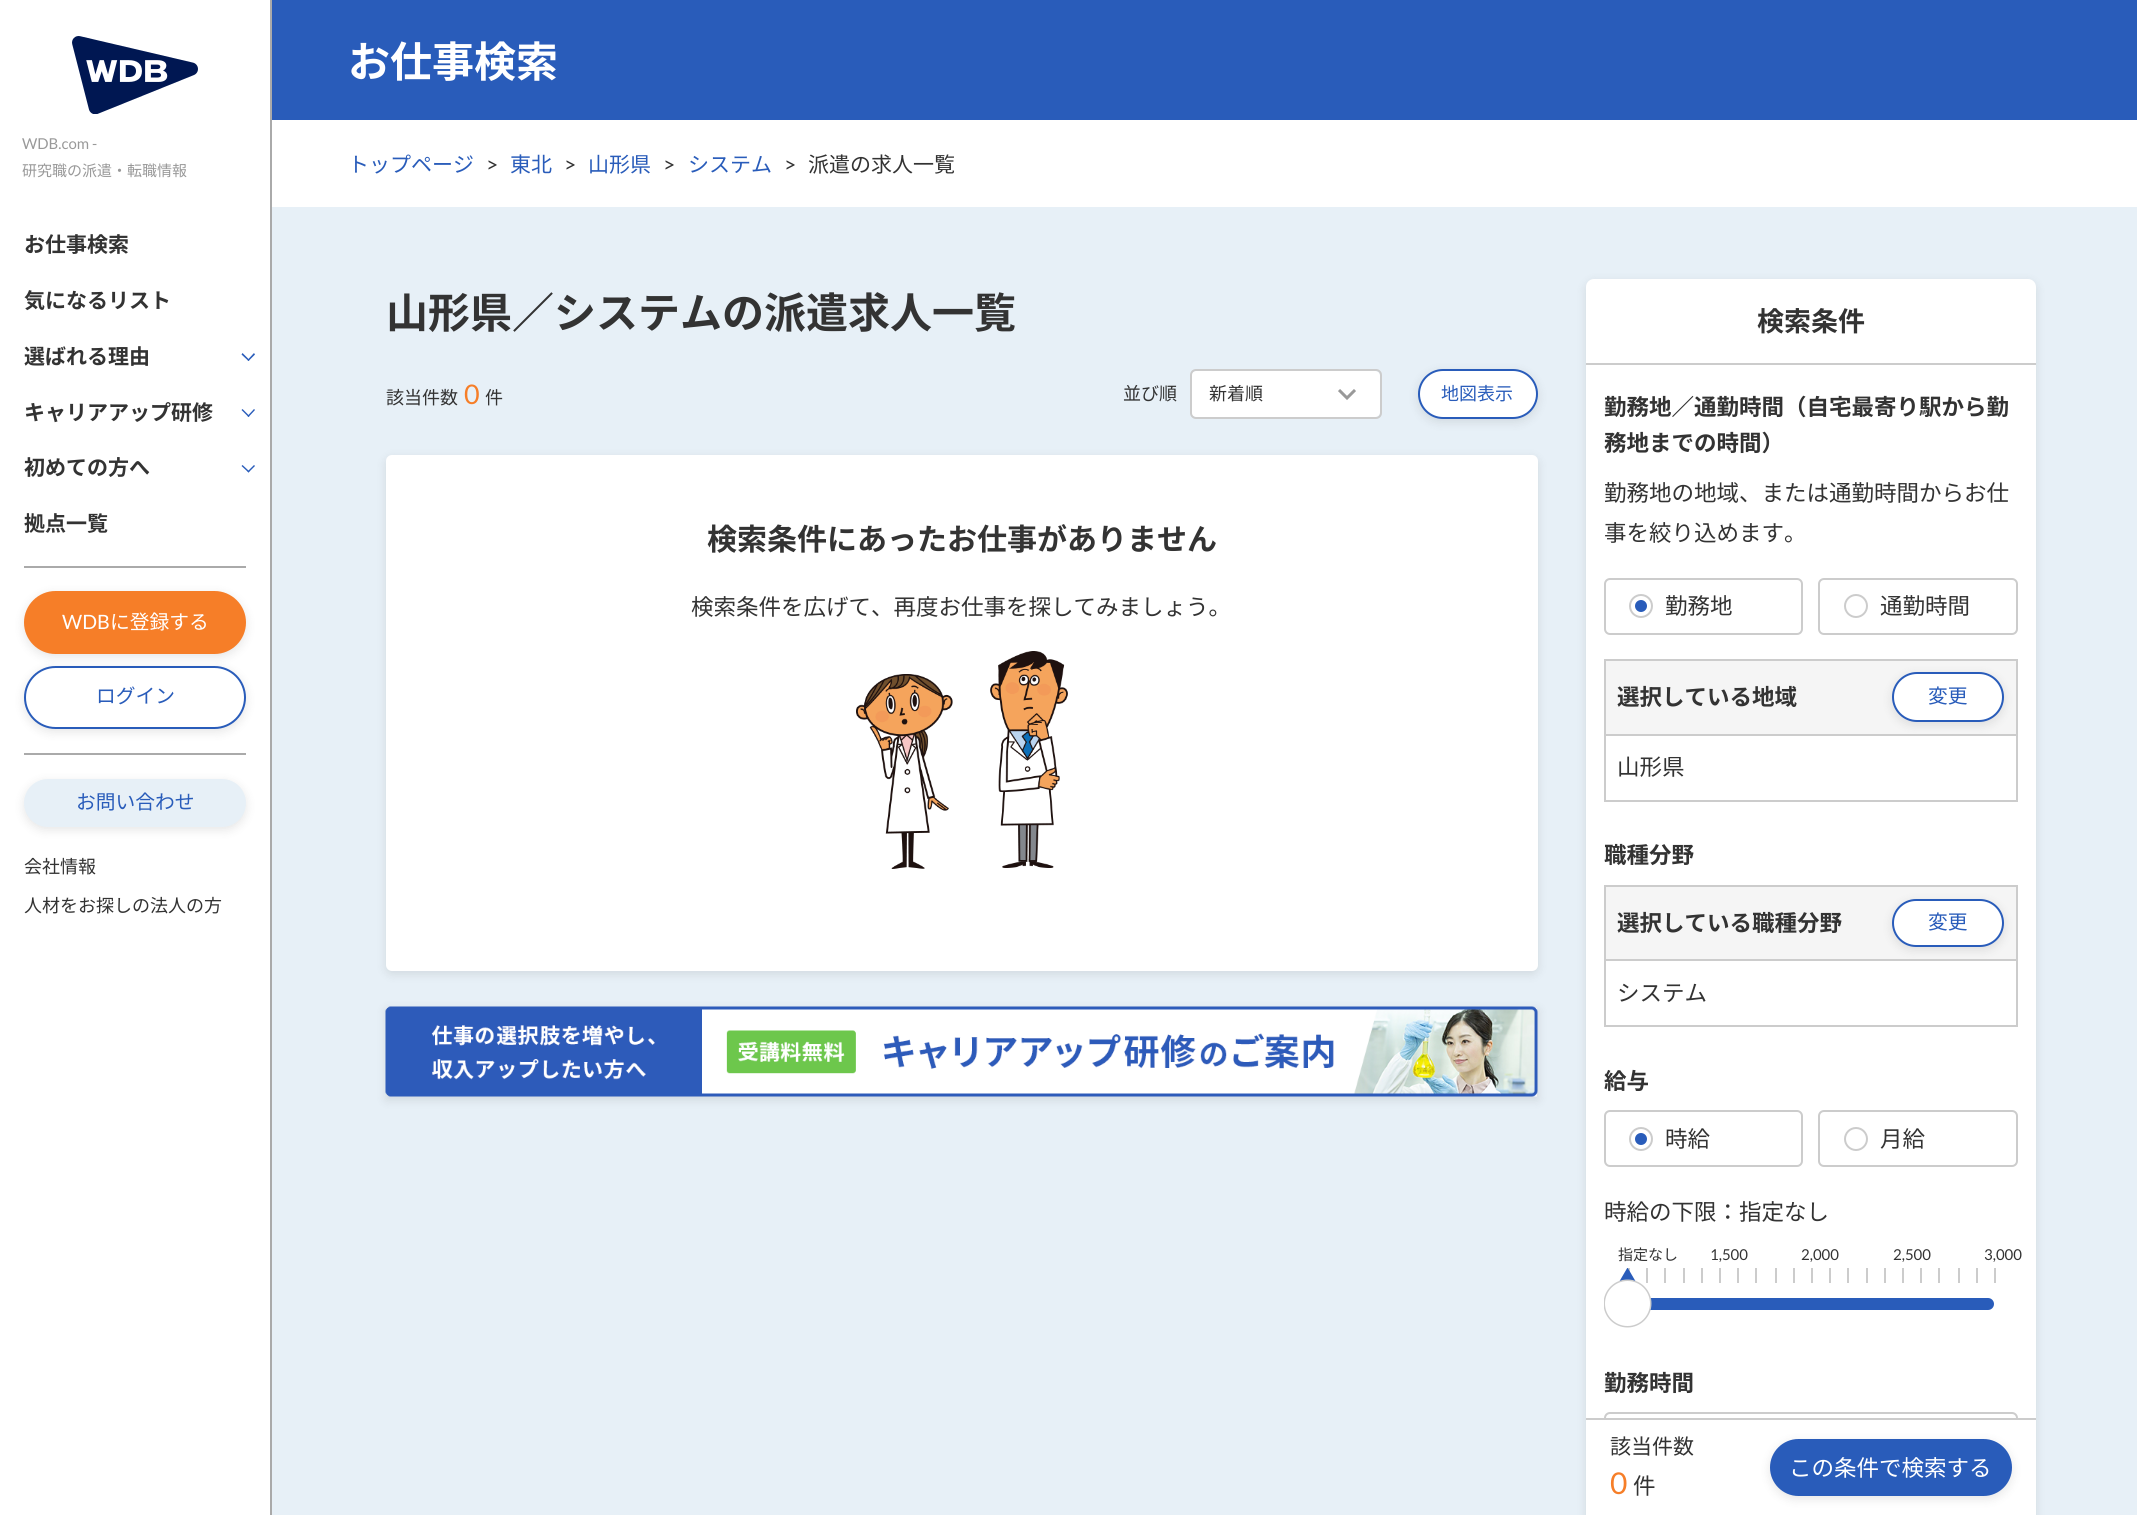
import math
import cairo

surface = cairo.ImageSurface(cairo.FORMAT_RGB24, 2137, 1515)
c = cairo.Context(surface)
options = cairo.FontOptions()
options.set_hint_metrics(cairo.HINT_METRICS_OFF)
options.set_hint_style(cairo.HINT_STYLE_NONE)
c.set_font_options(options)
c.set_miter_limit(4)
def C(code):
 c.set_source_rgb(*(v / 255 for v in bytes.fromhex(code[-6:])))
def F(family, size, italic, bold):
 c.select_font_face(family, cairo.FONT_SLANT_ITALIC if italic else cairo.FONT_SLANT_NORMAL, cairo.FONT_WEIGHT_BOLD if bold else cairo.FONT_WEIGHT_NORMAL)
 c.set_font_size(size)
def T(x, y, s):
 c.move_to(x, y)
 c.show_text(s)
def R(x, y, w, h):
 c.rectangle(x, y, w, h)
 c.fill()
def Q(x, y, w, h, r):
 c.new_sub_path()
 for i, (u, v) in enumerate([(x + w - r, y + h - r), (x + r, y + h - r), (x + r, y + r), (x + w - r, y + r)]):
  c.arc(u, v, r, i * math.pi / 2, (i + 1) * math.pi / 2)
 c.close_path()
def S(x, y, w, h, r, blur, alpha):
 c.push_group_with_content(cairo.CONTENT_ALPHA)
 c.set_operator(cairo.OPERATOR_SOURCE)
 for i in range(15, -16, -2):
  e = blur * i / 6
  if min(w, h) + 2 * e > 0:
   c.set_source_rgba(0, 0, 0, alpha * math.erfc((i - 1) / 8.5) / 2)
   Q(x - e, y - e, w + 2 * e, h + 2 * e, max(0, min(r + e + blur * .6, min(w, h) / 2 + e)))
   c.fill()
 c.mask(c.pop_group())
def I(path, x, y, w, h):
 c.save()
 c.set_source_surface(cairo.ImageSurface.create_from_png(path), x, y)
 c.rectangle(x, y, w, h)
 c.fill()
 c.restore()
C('ffffff')
c.paint()
C('aaaaaa')
R(270,0,2,1515)
I('1.png',72,36,126,78)
F('Lato',15,0,0)
C('999999')
T(22,149,'WDB.com -')
F('Noto Sans JP',15,0,0)
T(22,176,'研究職の派遣・転職情報')
F('Noto Sans JP',21,0,1)
C('333333')
T(24,252,'お仕事検索')
T(24,308,'気になるリスト')
T(24,364,'選ばれる理由')
C('295cba')
c.new_path()
c.move_to(254,353)
c.line_to(255,354.5)
c.line_to(248.5,361)
c.line_to(247.5,360)
c.close_path()
c.fill()
c.new_path()
c.move_to(242.5,353)
c.line_to(249.5,360)
c.line_to(248.5,361)
c.line_to(241.5,354.5)
c.close_path()
c.fill()
C('333333')
T(24,420,'キャリアアップ研修')
C('295cba')
c.new_path()
c.move_to(254,409)
c.line_to(255,410)
c.line_to(248.5,417)
c.line_to(247.5,416)
c.close_path()
c.fill()
c.new_path()
c.move_to(242.5,409)
c.line_to(249.5,416)
c.line_to(248.5,417)
c.line_to(241.5,410)
c.close_path()
c.fill()
C('333333')
T(24,475,'初めての方へ')
C('295cba')
c.new_path()
c.move_to(254,465)
c.line_to(255,466)
c.line_to(248.5,472.5)
c.line_to(247.5,471.5)
c.close_path()
c.fill()
c.new_path()
c.move_to(242.5,465)
c.line_to(249.5,471.5)
c.line_to(248.5,472.5)
c.line_to(241.5,466)
c.close_path()
c.fill()
C('333333')
T(24,531,'拠点一覧')
C('aaaaaa')
R(24,566,222,2)
C('000000')
S(24,594,222,63,31.5,5,.1)
C('f67e28')
Q(25,592,220,61,30.5)
c.fill_preserve()
c.stroke()
F('Lato',19.75,0,0)
C('ffffff')
T(62,629,'WDB')
F('Noto Sans JP',19.75,0,0)
T(110,629,'に登録する')
C('000000')
S(24,669,222,63,31.5,5,.1)
C('ffffff')
Q(25,667,220,61,30.5)
c.fill_preserve()
C('295cba')
c.stroke()
T(96,703,'ログイン')
C('aaaaaa')
R(24,753,222,2)
C('000000')
S(24,782,222,48,24,5,.1)
C('e7f0f7')
Q(25,780,220,46,23)
c.fill_preserve()
c.stroke()
C('295cba')
T(76,809,'お問い合わせ')
F('Noto Sans JP',18,0,0)
C('333333')
T(24,873,'会社情報')
T(24,912,'人材をお探しの法人の方')
C('295cba')
R(272,0,1865,120)
F('Noto Sans JP',42,0,1)
C('ffffff')
T(348,77,'お仕事検索')
F('Noto Sans JP',21,0,0)
C('295cba')
T(348,172,'トップページ')
F('Lato',21,0,0)
C('333333')
T(486,172,'>')
F('Noto Sans JP',21,0,0)
C('295cba')
T(510,172,'東北')
F('Lato',21,0,0)
C('333333')
T(564,172,'>')
F('Noto Sans JP',21,0,0)
C('295cba')
T(588,172,'山形県')
F('Lato',21,0,0)
C('333333')
T(663,172,'>')
F('Noto Sans JP',21,0,0)
C('295cba')
T(688,172,'システム')
F('Lato',21,0,0)
C('333333')
T(784,172,'>')
F('Noto Sans JP',21,0,0)
T(808,172,'派遣の求人一覧')
C('e7f0f7')
R(272,207,1865,1308)
F('Noto Sans JP',42,0,1)
C('333333')
T(386,328,'山形県／システムの派遣求人一覧')
F('Noto Sans JP',18,0,0)
T(386,404,'該当件数')
F('Lato',27,0,0)
C('f67e28')
T(464,404,'0')
F('Noto Sans JP',18,0,0)
C('333333')
T(485,404,'件')
T(1123,400,'並び順')
C('ffffff')
Q(1191,371,189,46,5)
c.fill()
c.new_path()
c.move_to(1339,390)
c.line_to(1347,398)
c.line_to(1355,390)
C('999999')
c.set_line_width(3)
c.stroke()
Q(1191,370,190,48,5)
C('cccccc')
c.set_line_width(2)
c.stroke()
C('333333')
T(1209,400,'新着順')
C('000000')
S(1418,372,120,50,25,5,.1)
C('ffffff')
Q(1419,370,118,48,24)
c.fill_preserve()
C('295cba')
c.stroke()
T(1441,400,'地図表示')
C('000000')
S(386,458,1152,516,6,5,.1)
C('ffffff')
Q(386,455,1152,516,6)
c.fill()
F('Noto Sans JP',30,0,1)
C('333333')
T(707,550,'検索条件にあったお仕事がありません')
F('Noto Sans JP',22.5,0,0)
T(691,615,'検索条件を広げて、再度お仕事を探してみましょう。')
I('2.png',856,651,212,218)
C('000000')
S(386,1010,1152,90,0,5,.1)
I('3.png',385,1006,1153,91)
S(1586,282,450,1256,8,5,.1)
C('ffffff')
Q(1586,279,450,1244,8)
c.fill()
C('cccccc')
R(1586,363,450,2)
F('Noto Sans JP',27,0,1)
C('333333')
T(1757,331,'検索条件')
F('Noto Sans JP',22.5,0,1)
T(1604,415,'勤務地／通勤時間（自宅最寄り駅から勤')
T(1604,451,'務地までの時間）')
F('Noto Sans JP',22.5,0,0)
T(1604,501,'勤務地の地域、または通勤時間からお仕')
T(1604,541,'事を絞り込めます。')
Q(1605,579,197,55,5)
C('cccccc')
c.stroke()
c.arc(1641,606,11,0,2 * math.pi)
c.stroke()
C('295cba')
c.arc(1641,606,6,0,2 * math.pi)
c.fill()
C('333333')
T(1665,614,'勤務地')
Q(1819,579,198,55,5)
C('cccccc')
c.stroke()
c.arc(1856,606,11,0,2 * math.pi)
c.stroke()
C('333333')
T(1880,614,'通勤時間')
C('cccccc')
R(1604,659,414,2)
R(2016,659,2,142)
R(1604,800,414,2)
R(1604,659,2,142)
C('f5f5f5')
R(1606,661,410,73)
F('Noto Sans JP',22.5,0,1)
C('333333')
T(1617,705,'選択している地域')
C('cccccc')
R(1604,734,414,2)
C('000000')
S(1892,675,112,50,25,5,.1)
C('ffffff')
Q(1893,673,110,48,24)
c.fill_preserve()
C('295cba')
c.stroke()
F('Noto Sans JP',19.75,0,0)
T(1928,703,'変更')
F('Noto Sans JP',22.5,0,0)
C('333333')
T(1617,775,'山形県')
F('Noto Sans JP',22.5,0,1)
T(1604,863,'職種分野')
C('cccccc')
R(1604,885,414,2)
R(2016,885,2,141)
R(1604,1025,414,2)
R(1604,885,2,141)
C('f5f5f5')
R(1606,887,410,72)
C('333333')
T(1617,931,'選択している職種分野')
C('cccccc')
R(1604,959,414,2)
C('000000')
S(1892,902,112,48,24,5,.1)
C('ffffff')
Q(1893,900,110,46,23)
c.fill_preserve()
C('295cba')
c.stroke()
F('Noto Sans JP',19.75,0,0)
T(1928,929,'変更')
F('Noto Sans JP',22.5,0,0)
C('333333')
T(1617,1001,'システム')
F('Noto Sans JP',22.5,0,1)
T(1604,1089,'給与')
Q(1605,1111,197,55,5)
C('cccccc')
c.stroke()
c.arc(1641,1139,11,0,2 * math.pi)
c.stroke()
C('295cba')
c.arc(1641,1139,6,0,2 * math.pi)
c.fill()
F('Noto Sans JP',22.5,0,0)
C('333333')
T(1665,1147,'時給')
Q(1819,1111,198,55,5)
C('cccccc')
c.stroke()
c.arc(1856,1139,11,0,2 * math.pi)
c.stroke()
C('333333')
T(1880,1147,'月給')
T(1604,1220,'時給の下限：指定なし')
F('Noto Sans JP',15,0,0)
T(1618,1260,'指定なし')
F('Lato',15,0,0)
T(1710,1260,'1,500')
T(1801,1260,'2,000')
T(1893,1260,'2,500')
T(1984,1260,'3,000')
C('cccccc')
R(1628,1268,2,4)
R(1646,1268,2,15)
C('295cba')
Q(1628,1298,366,12,6)
c.fill()
I('4.png',1604,1268,48,60)
C('cccccc')
R(1664,1268,2,15)
R(1683,1268,2,15)
R(1701,1268,2,15)
R(1719,1268,2,15)
R(1737,1268,2,15)
R(1755,1268,2,15)
R(1775,1268,2,15)
R(1793,1268,2,15)
R(1811,1268,2,15)
R(1829,1268,2,15)
R(1847,1268,2,15)
R(1866,1268,2,15)
R(1884,1268,2,15)
R(1902,1268,2,15)
R(1920,1268,2,15)
R(1938,1268,2,15)
R(1958,1268,2,15)
R(1976,1268,2,15)
R(1994,1268,2,15)
F('Noto Sans JP',22.5,0,1)
C('333333')
T(1604,1391,'勤務時間')
Q(1605,1413,412,82,5)
C('cccccc')
c.stroke()
C('ffffff')
R(1604,1420,414,76)
C('cccccc')
R(1586,1418,450,2)
F('Noto Sans JP',21,0,0)
C('333333')
T(1610,1454,'該当件数')
F('Lato',30,0,0)
C('f67e28')
T(1610,1494,'0')
F('Noto Sans JP',22.5,0,0)
C('333333')
T(1633,1494,'件')
C('000000')
S(1770,1442,242,57,28.5,5,.1)
C('295cba')
Q(1771,1440,240,55,27.5)
c.fill_preserve()
c.stroke()
C('ffffff')
T(1789,1476,'この条件で検索する')
surface.write_to_png('o.png')
